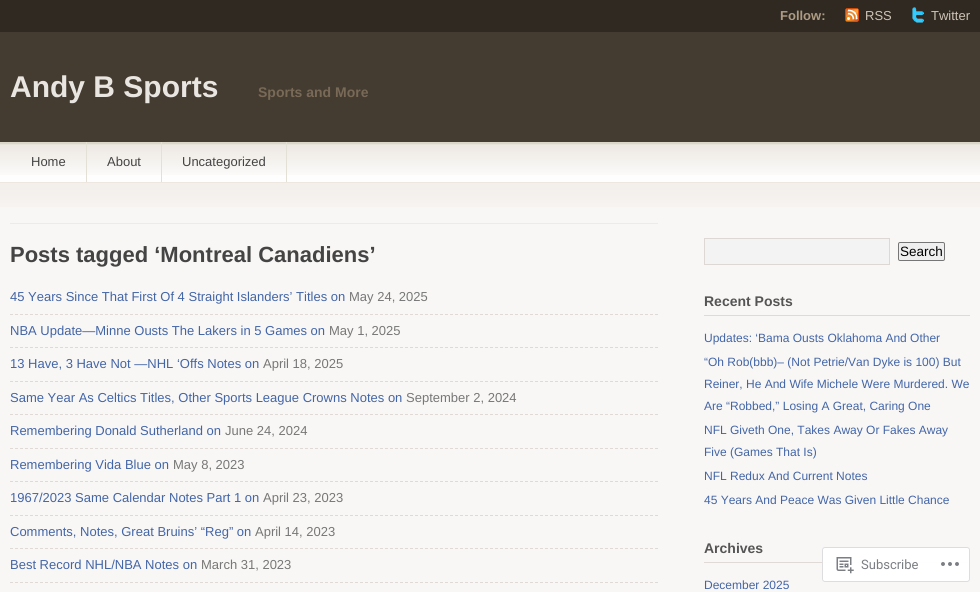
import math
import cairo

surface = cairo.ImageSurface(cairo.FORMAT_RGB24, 980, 592)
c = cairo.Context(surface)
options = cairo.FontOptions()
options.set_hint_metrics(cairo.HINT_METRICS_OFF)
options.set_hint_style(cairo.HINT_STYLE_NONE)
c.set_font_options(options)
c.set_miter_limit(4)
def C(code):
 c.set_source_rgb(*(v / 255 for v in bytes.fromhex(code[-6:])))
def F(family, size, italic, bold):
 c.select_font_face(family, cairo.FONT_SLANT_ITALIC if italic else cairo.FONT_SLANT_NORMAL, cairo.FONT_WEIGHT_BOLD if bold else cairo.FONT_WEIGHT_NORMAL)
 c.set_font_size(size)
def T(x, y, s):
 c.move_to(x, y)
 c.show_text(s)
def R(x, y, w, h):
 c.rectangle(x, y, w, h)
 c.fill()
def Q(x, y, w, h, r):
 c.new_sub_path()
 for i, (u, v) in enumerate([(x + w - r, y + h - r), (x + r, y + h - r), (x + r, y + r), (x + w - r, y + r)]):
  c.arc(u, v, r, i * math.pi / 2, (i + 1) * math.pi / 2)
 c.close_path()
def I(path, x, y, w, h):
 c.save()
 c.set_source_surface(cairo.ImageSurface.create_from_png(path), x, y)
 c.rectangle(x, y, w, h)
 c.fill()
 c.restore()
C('f9f7f5')
c.paint()
C('443b31')
R(0,32,980,110)
C('2f2922')
R(0,0,980,32)
F('Liberation Sans',13,0,1)
C('ad9b83')
T(780,20,'Follow:')
I('1.png',845,8,14,14)
F('Liberation Sans',13,0,0)
C('cfc4b6')
T(865,20,'RSS')
I('2.png',912,7,12,16)
T(931,20,'Twitter')
F('Liberation Sans',30,0,1)
C('e9e5e0')
T(10,97,'Andy B Sports')
F('Liberation Sans',14,0,1)
C('796957')
T(258,97,'Sports and More')
C('fffefe')
R(0,175,980,7)
I('3.png',0,142,980,33)
C('ede7e0')
R(0,182,980,1)
C('e3e0d5')
R(86,142,1,40)
F('Liberation Sans',13,0,0)
C('444444')
T(31,166,'Home')
C('e3e0d5')
R(161,142,1,40)
C('444444')
T(107,166,'About')
C('e3e0d5')
R(286,142,1,40)
C('444444')
T(182,166,'Uncategorized')
I('4.png',0,183,980,24)
C('efeae4')
R(10,223,648,1)
F('Liberation Sans',22,0,1)
C('444444')
T(10,262,'Posts tagged ‘Montreal Canadiens’')
c.new_path()
c.move_to(10,314.5)
c.line_to(658,314.5)
C('dfdad5')
c.set_line_width(1)
c.set_dash([3,2])
c.stroke()
F('Liberation Sans',13,0,0)
C('4265a7')
T(10,301,'45 Years Since That First Of 4 Straight Islanders’ Titles on')
C('777777')
T(349,301,'May 24, 2025')
c.new_path()
c.move_to(10,347.5)
c.line_to(658,347.5)
C('dfdad5')
c.stroke()
C('4265a7')
T(10,335,'NBA Update—Minne Ousts The Lakers in 5 Games on')
C('777777')
T(329,335,'May 1, 2025')
c.new_path()
c.move_to(10,381.5)
c.line_to(658,381.5)
C('dfdad5')
c.stroke()
C('4265a7')
T(10,368,'13 Have, 3 Have Not —NHL ‘Offs Notes on')
C('777777')
T(263,368,'April 18, 2025')
c.new_path()
c.move_to(10,414.5)
c.line_to(658,414.5)
C('dfdad5')
c.stroke()
C('4265a7')
T(10,402,'Same Year As Celtics Titles, Other Sports League Crowns Notes on')
C('777777')
T(406,402,'September 2, 2024')
c.new_path()
c.move_to(10,448.5)
c.line_to(658,448.5)
C('dfdad5')
c.stroke()
C('4265a7')
T(10,435,'Remembering Donald Sutherland on')
C('777777')
T(225,435,'June 24, 2024')
c.new_path()
c.move_to(10,481.5)
c.line_to(658,481.5)
C('dfdad5')
c.stroke()
C('4265a7')
T(10,469,'Remembering Vida Blue on')
C('777777')
T(173,469,'May 8, 2023')
c.new_path()
c.move_to(10,515.5)
c.line_to(658,515.5)
C('dfdad5')
c.stroke()
C('4265a7')
T(10,502,'1967/2023 Same Calendar Notes Part 1 on')
C('777777')
T(263,502,'April 23, 2023')
c.new_path()
c.move_to(10,548.5)
c.line_to(658,548.5)
C('dfdad5')
c.stroke()
C('4265a7')
T(10,536,'Comments, Notes, Great Bruins’ “Reg” on')
C('777777')
T(255,536,'April 14, 2023')
c.new_path()
c.move_to(10,582.5)
c.line_to(658,582.5)
C('dfdad5')
c.stroke()
C('4265a7')
T(10,569,'Best Record NHL/NBA Notes on')
C('777777')
T(201,569,'March 31, 2023')
C('f3f3f3')
c.rectangle(704.5,238.5,185,26)
c.fill_preserve()
C('ded8d5')
c.set_dash([])
c.stroke()
C('efefef')
Q(898.5,242.5,46,18,1.5)
c.fill_preserve()
C('767676')
c.stroke()
F('Liberation Sans',13.5,0,0)
C('000000')
T(900,256,'Search')
C('dfdad5')
R(704,315,266,1)
F('Liberation Sans',14,0,1)
C('555555')
T(704,306,'Recent Posts')
F('Liberation Sans',12,0,0)
C('4265a7')
T(704,342,'Updates: ‘Bama Ousts Oklahoma And Other')
T(704,366,'“Oh Rob(bbb)– (Not Petrie/Van Dyke is 100) But')
T(704,388,'Reiner, He And Wife Michele Were Murdered. We')
T(704,410,'Are “Robbed,” Losing A Great, Caring One')
T(704,434,'NFL Giveth One, Takes Away Or Fakes Away')
T(704,456,'Five (Games That Is)')
T(704,480,'NFL Redux And Current Notes')
T(704,504,'45 Years And Peace Was Given Little Chance')
C('dfdad5')
R(704,562,266,1)
F('Liberation Sans',14,0,1)
C('555555')
T(704,553,'Archives')
F('Liberation Sans',12,0,0)
C('4265a7')
T(704,589,'December 2025')
c.set_source_rgba(1,1,1,0.98)
Q(822,547,148,35,3)
c.fill()
Q(822.5,547.5,147,34,2.5)
c.set_source_rgba(0.863,0.863,0.871,0.98)
c.stroke()
I('5.png',836,557,18,17)
F('Roboto',13,0,0)
C('7b7f84')
T(861,569,'Subscribe')
I('6.png',941,562,18,4)
surface.write_to_png('o.png')
